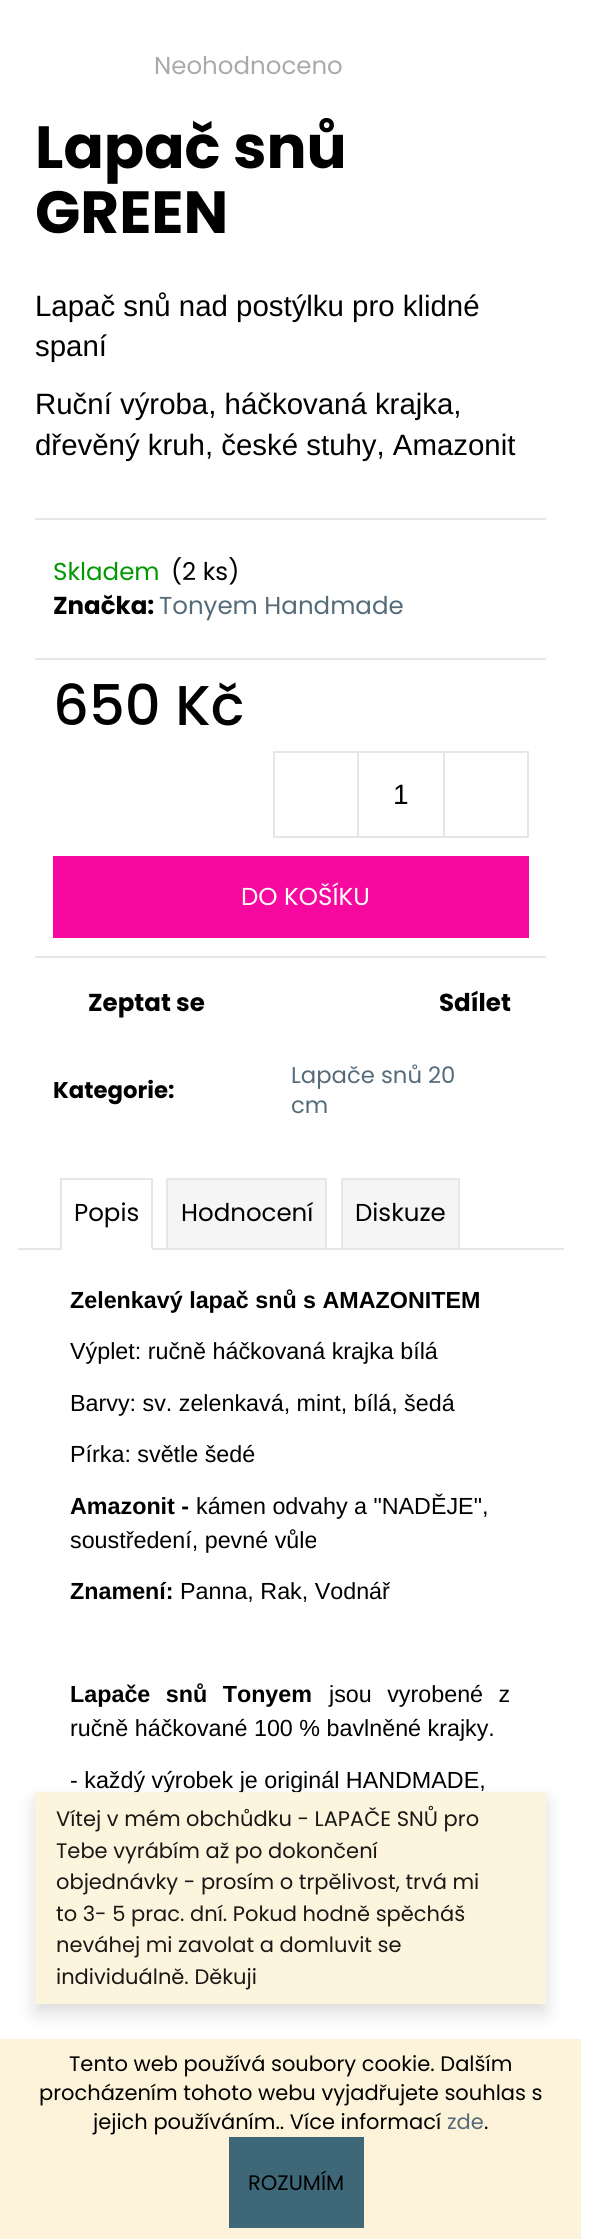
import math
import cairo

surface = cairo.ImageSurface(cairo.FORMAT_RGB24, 606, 2239)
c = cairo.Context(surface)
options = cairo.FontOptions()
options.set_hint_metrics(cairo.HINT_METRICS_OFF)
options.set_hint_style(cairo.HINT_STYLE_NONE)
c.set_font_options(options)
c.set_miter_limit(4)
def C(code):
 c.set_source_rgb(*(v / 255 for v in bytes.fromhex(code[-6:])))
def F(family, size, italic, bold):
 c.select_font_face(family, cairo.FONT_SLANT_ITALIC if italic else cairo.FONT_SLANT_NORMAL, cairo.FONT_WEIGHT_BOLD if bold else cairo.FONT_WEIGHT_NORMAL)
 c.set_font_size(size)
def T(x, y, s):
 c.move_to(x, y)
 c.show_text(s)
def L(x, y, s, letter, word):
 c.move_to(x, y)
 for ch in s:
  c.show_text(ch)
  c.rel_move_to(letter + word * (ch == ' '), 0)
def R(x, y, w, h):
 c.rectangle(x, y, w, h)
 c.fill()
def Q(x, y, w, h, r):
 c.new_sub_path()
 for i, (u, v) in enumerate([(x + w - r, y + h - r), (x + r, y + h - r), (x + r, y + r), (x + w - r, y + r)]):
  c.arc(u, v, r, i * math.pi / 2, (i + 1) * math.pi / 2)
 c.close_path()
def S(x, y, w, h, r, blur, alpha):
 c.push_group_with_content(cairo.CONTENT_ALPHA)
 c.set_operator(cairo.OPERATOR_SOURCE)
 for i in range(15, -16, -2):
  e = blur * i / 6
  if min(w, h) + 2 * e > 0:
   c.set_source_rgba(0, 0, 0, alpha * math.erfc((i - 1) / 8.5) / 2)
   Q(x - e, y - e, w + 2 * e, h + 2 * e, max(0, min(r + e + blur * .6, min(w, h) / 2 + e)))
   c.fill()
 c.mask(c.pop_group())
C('ffffff')
c.paint()
F('Poppins',24.5,0,0)
C('aaaaaa')
T(154,74,'Neohodnoceno')
F('Poppins',59.5,0,1)
C('000000')
T(35,168,'Lapač snů')
T(35,233,'GREEN')
F('Liberation Sans',29.4,0,0)
T(35,316,'Lapač snů nad postýlku pro klidné')
T(35,356,'spaní')
T(35,414,'Ruční výroba, háčkovaná krajka,')
T(35,455,'dřevěný kruh, české stuhy, Amazonit')
C('e7e7e7')
R(35,518,511,2)
R(35,658,511,2)
F('Poppins',24.5,0,0)
C('009901')
T(53,580,'Skladem')
C('000000')
T(171,580,'(2 ks)')
F('Poppins',24.5,0,1)
T(53,614,'Značka:')
F('Poppins',24.5,0,0)
C('546b79')
T(159,614,'Tonyem Handmade')
C('e7e7e7')
R(35,956,511,2)
F('Poppins Medium',56,0,0)
C('000000')
T(53,725,'650 Kč')
c.rectangle(274,752,254,85)
C('e6e6e6')
c.stroke()
R(357,753,2,84)
F('Liberation Sans',28,0,0)
C('000000')
T(393,804,'1')
C('e6e6e6')
R(443,753,2,84)
C('f7089f')
R(53,856,476,82)
F('Poppins',24.5,0,0)
C('ffffff')
T(241,905,'DO KOŠÍKU')
F('Poppins',24.5,0,1)
C('000000')
T(88,1011,'Zeptat se')
T(439,1011,'Sdílet')
F('Poppins',22.75,0,1)
T(53,1098,'Kategorie:')
F('Poppins',22.75,0,0)
C('546b79')
T(291,1083,'Lapače snů 20')
T(291,1113,'cm')
C('e7e7e7')
R(18,1248,546,2)
R(60,1178,92,2)
R(151,1178,2,72)
C('ffffff')
R(60,1248,92,2)
C('e7e7e7')
R(60,1178,2,72)
F('Poppins',24.5,0,0)
C('000000')
T(74,1221,'Popis')
C('f5f5f5')
c.rectangle(167,1179,159,70)
c.fill_preserve()
C('e7e7e7')
c.stroke()
C('000000')
T(181,1221,'Hodnocení')
C('f5f5f5')
c.rectangle(342,1179,117,70)
c.fill_preserve()
C('e7e7e7')
c.stroke()
C('000000')
T(355,1221,'Diskuze')
F('Liberation Sans',23.3,0,1)
T(70,1308,'Zelenkavý lapač snů s AMAZONITEM')
F('Liberation Sans',23.3,0,0)
T(70,1359,'Výplet: ručně háčkovaná krajka bílá')
T(70,1411,'Barvy: sv. zelenkavá, mint, bílá, šedá')
T(70,1462,'Pírka: světle šedé')
F('Liberation Sans',23.3,0,1)
T(70,1514,'Amazonit -')
F('Liberation Sans',23.3,0,0)
T(196,1514,'kámen odvahy a "NADĚJE",')
T(70,1548,'soustředení, pevné vůle')
F('Liberation Sans',23.3,0,1)
T(70,1599,'Znamení:')
F('Liberation Sans',23.3,0,0)
T(180,1599,'Panna, Rak, Vodnář')
F('Liberation Sans',23.3,0,1)
L(70,1702,'Lapače snů Tonyem',0,9)
F('Liberation Sans',23.3,0,0)
L(329,1702,'jsou vyrobené z',0,9)
T(70,1736,'ručně háčkované 100 % bavlněné krajky.')
T(70,1788,'- každý výrobek je originál HANDMADE,')
c.save()
c.set_fill_rule(cairo.FILL_RULE_EVEN_ODD)
c.new_path()
c.move_to(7,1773)
c.line_to(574,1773)
c.line_to(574,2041)
c.line_to(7,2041)
c.close_path()
c.move_to(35,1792)
c.line_to(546,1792)
c.line_to(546,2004)
c.line_to(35,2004)
c.close_path()
c.clip()
C('000000')
S(35,1801,511,212,0,9,.14)
c.restore()
c.set_source_rgba(0.992,0.953,0.855,0.9)
R(35,1792,511,212)
F('Poppins',21,0,0)
C('191816')
T(56,1826,'Vítej v mém obchůdku - LAPAČE SNŮ pro')
T(56,1858,'Tebe vyrábím až po dokončení')
T(56,1889,'objednávky - prosím o trpělivost, trvá mi')
T(56,1921,'to 3- 5 prac. dní. Pokud hodně spěcháš')
T(56,1952,'neváhej mi zavolat a domluvit se')
T(56,1984,'individuálně. Děkuji')
C('fdf3da')
R(0,2039,581,200)
C('000000')
T(69,2071,'Tento web používá soubory cookie. Dalším')
T(39,2100,'procházením tohoto webu vyjadřujete souhlas s')
T(93,2129,'jejich používáním.. Více informací')
C('546b79')
T(447,2129,'zde')
C('000000')
T(484,2129,'.')
C('3e6777')
R(229,2137,135,91)
C('000000')
T(248,2190,'ROZUMÍM')
surface.write_to_png('o.png')
